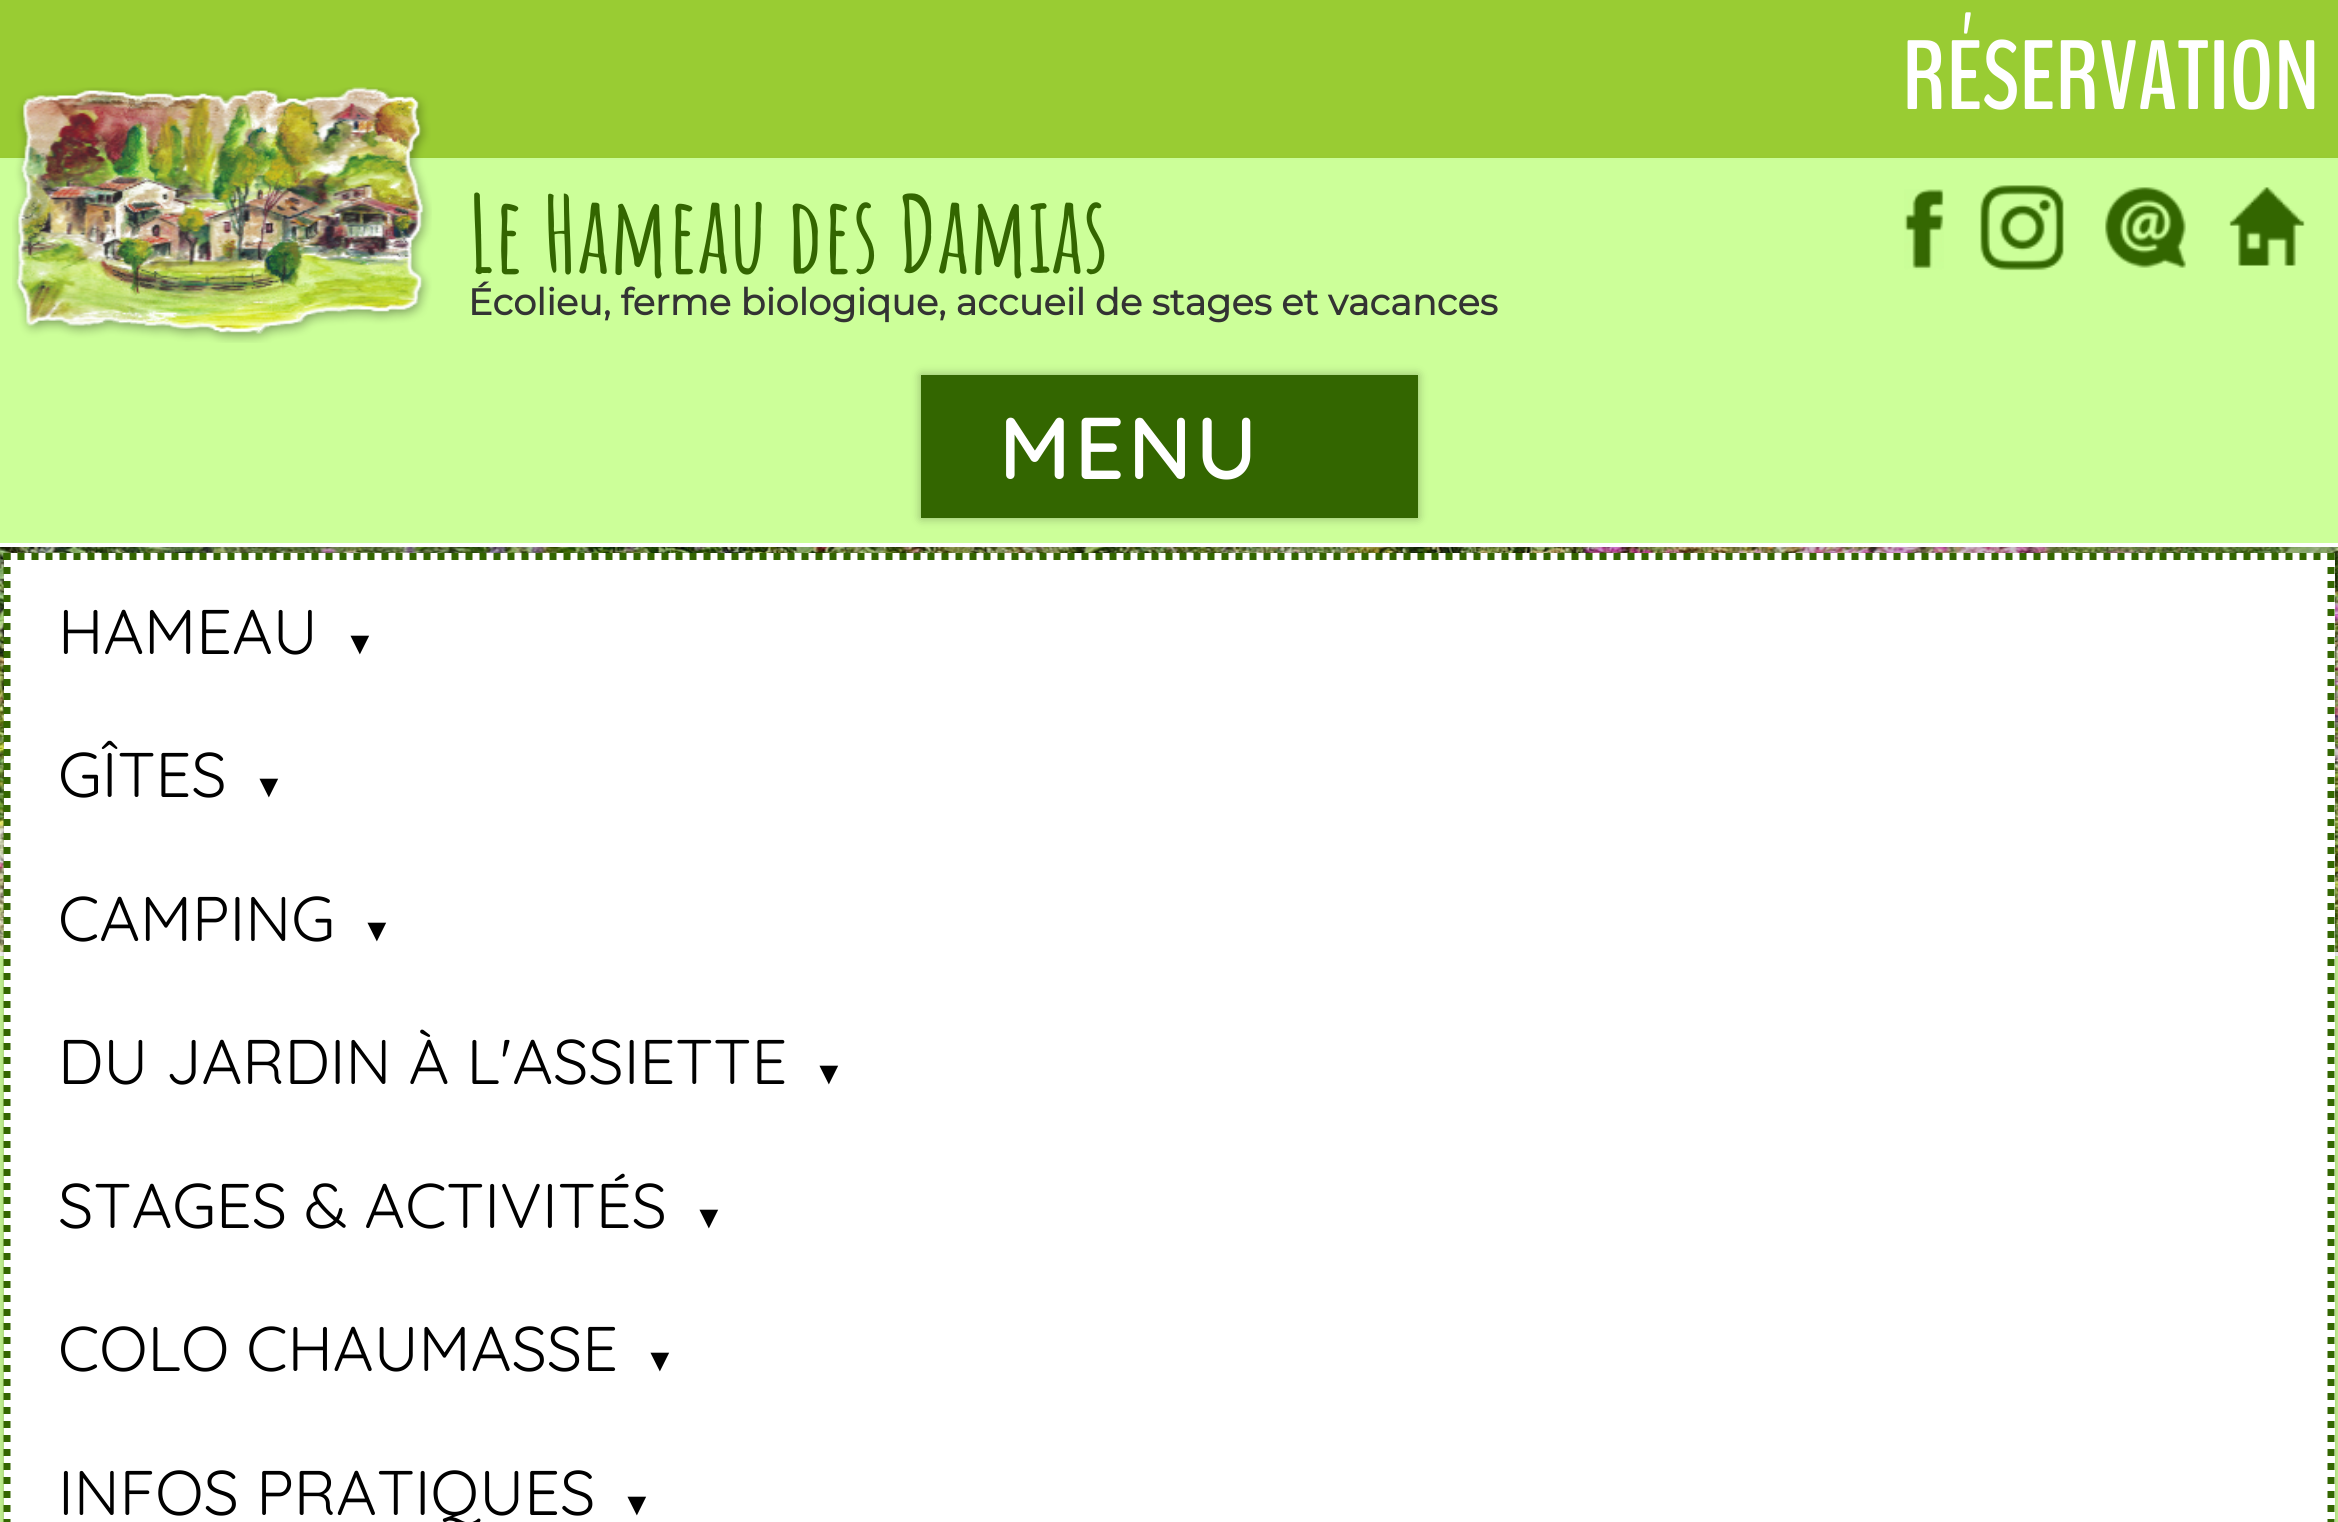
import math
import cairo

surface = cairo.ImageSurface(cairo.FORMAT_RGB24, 2338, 1522)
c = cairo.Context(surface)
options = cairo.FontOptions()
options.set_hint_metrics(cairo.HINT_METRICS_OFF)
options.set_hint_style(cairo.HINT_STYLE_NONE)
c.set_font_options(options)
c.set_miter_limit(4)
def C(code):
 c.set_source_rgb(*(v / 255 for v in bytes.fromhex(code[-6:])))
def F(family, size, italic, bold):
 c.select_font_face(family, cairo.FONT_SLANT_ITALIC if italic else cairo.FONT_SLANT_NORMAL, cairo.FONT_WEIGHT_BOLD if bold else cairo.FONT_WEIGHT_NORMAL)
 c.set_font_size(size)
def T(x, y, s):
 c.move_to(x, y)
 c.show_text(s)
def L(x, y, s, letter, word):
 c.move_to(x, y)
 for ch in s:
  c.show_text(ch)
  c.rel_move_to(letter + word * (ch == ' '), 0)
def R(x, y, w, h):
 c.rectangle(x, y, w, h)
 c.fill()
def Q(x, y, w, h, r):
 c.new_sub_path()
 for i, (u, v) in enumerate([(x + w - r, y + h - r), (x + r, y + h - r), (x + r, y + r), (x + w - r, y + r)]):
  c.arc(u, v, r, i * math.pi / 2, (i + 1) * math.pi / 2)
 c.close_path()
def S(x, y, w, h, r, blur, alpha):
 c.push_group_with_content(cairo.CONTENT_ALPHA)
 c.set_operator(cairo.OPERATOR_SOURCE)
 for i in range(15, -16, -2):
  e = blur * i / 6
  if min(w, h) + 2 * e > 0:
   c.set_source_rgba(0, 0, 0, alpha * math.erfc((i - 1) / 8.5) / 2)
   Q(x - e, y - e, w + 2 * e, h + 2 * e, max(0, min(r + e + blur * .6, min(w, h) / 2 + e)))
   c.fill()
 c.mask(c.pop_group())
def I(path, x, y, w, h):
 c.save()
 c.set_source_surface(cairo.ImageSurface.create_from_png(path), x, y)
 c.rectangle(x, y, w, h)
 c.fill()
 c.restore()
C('ccff99')
c.paint()
C('99cc33')
R(0,0,2338,158)
F('BenchNine',98,0,1)
C('ffffff')
T(1902,109,'RÉSERVATION')
I('6.png',0,547,2338,405)
C('000000')
S(0,175,2338,389,0,9,.2)
C('ccff99')
R(0,160,2338,383)
C('ffffff')
R(0,543,2338,4)
I('1.png',12,87,420,256)
F('Amatic SC',105,0,1)
C('336600')
T(468,273,'Le Hameau des Damias')
F('Montserrat',36.75,0,1)
C('333333')
T(468,315,'Écolieu, ferme biologique, accueil de stages et vacances')
I('2.png',1904,189,40,81)
I('3.png',1980,185,84,86)
I('4.png',2105,187,81,81)
I('5.png',2229,187,76,79)
C('000000')
S(921,375,497,143,0,5,.3)
C('336600')
R(921,375,497,143)
F('Quicksand SemiBold',87.5,0,0)
C('ffffff')
L(999,479,'MENU',3.5,0)
R(0,952,2338,4)
C('000000')
S(4,560,2331,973,0,3.5,.2)
S(25,749,2289,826,0,17.5,.5)
C('ffffff')
R(4,553,2331,969)
c.new_path()
c.move_to(3.5,556.5)
c.line_to(2334.5,556.5)
C('336600')
c.set_line_width(7)
c.set_dash([7,7])
c.stroke()
c.new_path()
c.move_to(2331,553)
c.line_to(2331,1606.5)
c.stroke()
c.new_path()
c.move_to(7,553)
c.line_to(7,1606.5)
c.stroke()
F('Quicksand',63,0,0)
C('000000')
T(58,654,'HAMEAU')
F('Liberation Sans',32,0,0)
T(344,654,'▼')
F('Quicksand',63,0,0)
T(58,797,'GÎTES')
F('Liberation Sans',32,0,0)
T(253,797,'▼')
F('Quicksand',63,0,0)
T(58,941,'CAMPING')
F('Liberation Sans',32,0,0)
T(361,941,'▼')
F('Quicksand',63,0,0)
T(58,1084,'DU JARDIN À L\'ASSIETTE')
F('Liberation Sans',32,0,0)
T(813,1084,'▼')
F('Quicksand',63,0,0)
T(58,1228,'STAGES & ACTIVITÉS')
F('Liberation Sans',32,0,0)
T(693,1228,'▼')
F('Quicksand',63,0,0)
T(58,1371,'COLO CHAUMASSE')
F('Liberation Sans',32,0,0)
T(644,1371,'▼')
F('Quicksand',63,0,0)
T(58,1515,'INFOS PRATIQUES')
F('Liberation Sans',32,0,0)
T(621,1515,'▼')
surface.write_to_png('o.png')
